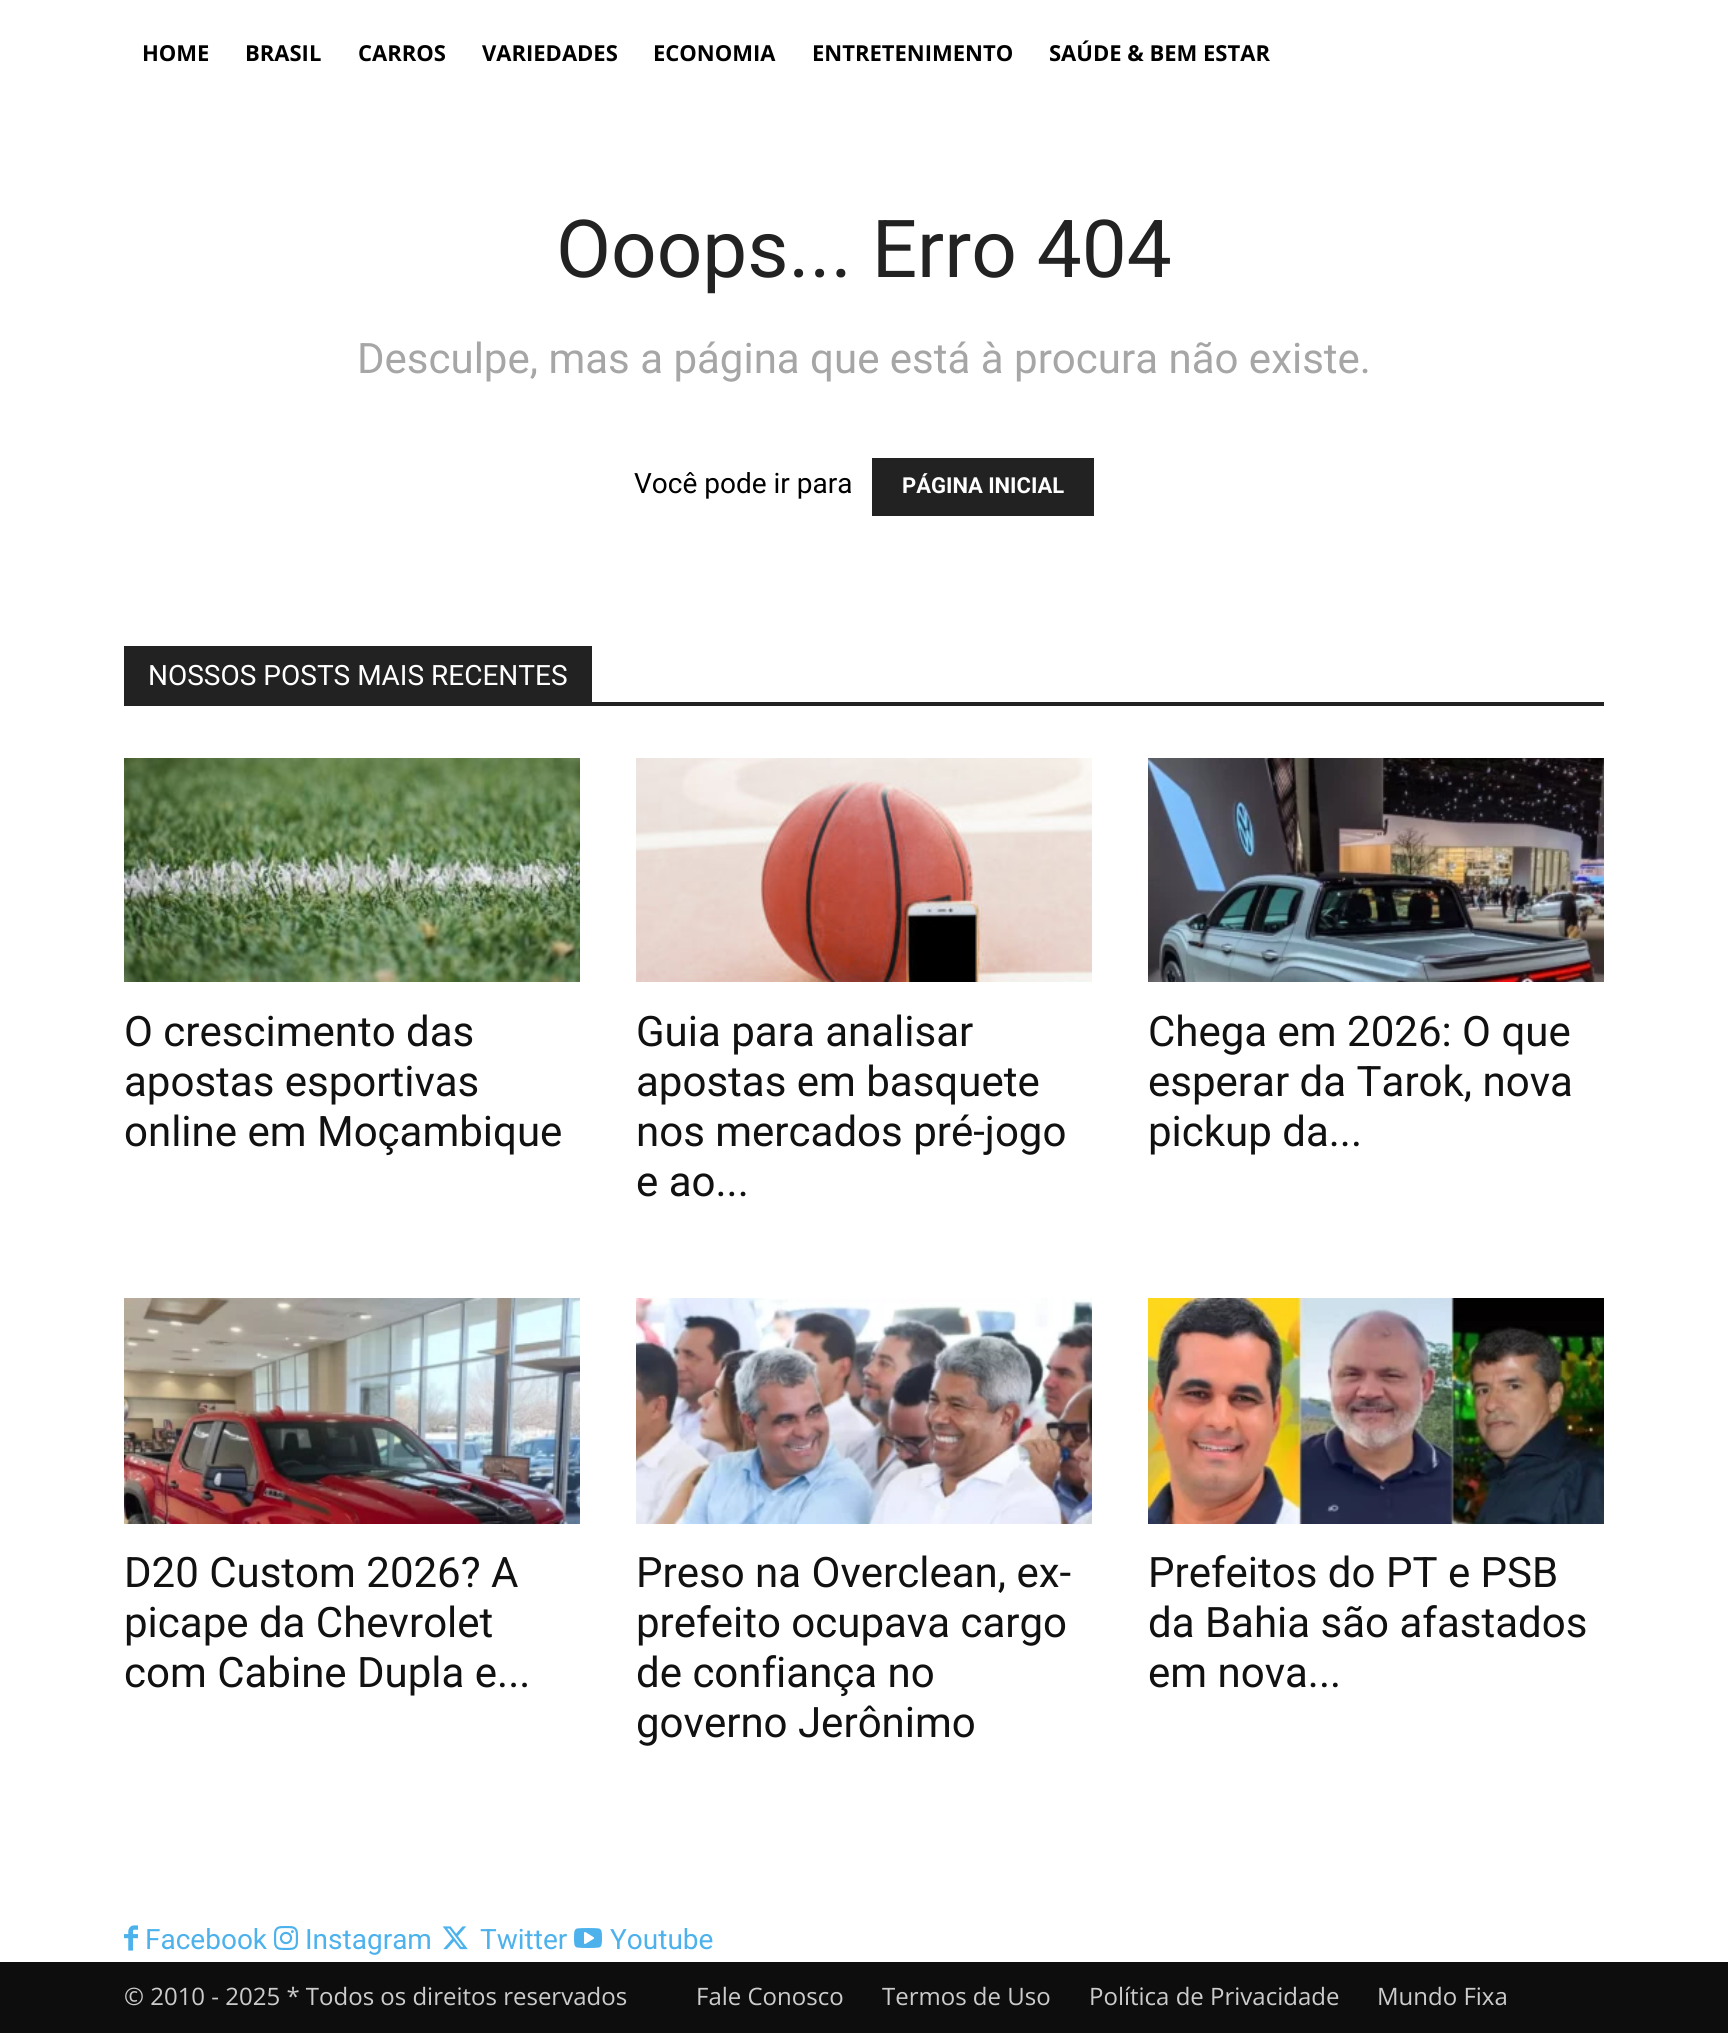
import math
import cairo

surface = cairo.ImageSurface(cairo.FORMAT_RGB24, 1728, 2033)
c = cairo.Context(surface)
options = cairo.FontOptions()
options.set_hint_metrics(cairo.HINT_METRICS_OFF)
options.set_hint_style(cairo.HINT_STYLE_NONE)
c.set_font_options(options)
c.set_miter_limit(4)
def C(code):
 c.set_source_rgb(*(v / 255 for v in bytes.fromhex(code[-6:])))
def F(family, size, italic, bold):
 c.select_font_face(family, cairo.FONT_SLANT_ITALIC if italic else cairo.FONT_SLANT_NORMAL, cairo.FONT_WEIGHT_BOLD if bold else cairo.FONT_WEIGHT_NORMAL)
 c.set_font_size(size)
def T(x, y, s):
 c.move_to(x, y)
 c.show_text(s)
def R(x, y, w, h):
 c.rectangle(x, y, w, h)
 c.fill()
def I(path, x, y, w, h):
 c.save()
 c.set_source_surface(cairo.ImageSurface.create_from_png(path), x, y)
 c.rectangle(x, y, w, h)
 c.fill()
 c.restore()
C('ffffff')
c.paint()
F('Open Sans',22,0,1)
C('000000')
T(142,61,'HOME')
T(245,61,'BRASIL')
T(358,61,'CARROS')
T(482,61,'VARIEDADES')
T(653,61,'ECONOMIA')
T(812,61,'ENTRETENIMENTO')
T(1049,61,'SAÚDE & BEM ESTAR')
F('Roboto',80,0,0)
C('222222')
T(556,277,'Ooops... Erro 404')
F('Roboto',42,0,0)
C('a6a6a6')
T(357,373,'Desculpe, mas a página que está à procura não existe.')
F('Roboto',28,0,0)
C('000000')
T(634,493,'Você pode ir para')
C('222222')
R(872,458,222,58)
F('Roboto',22,0,1)
C('ffffff')
T(902,493,'PÁGINA INICIAL')
C('222222')
R(124,702,1480,4)
R(124,646,468,56)
F('Roboto',28,0,0)
C('ffffff')
T(148,685,'NOSSOS POSTS MAIS RECENTES')
I('1.png',124,758,456,224)
F('Roboto',42,0,0)
C('111111')
T(124,1046,'O crescimento das')
T(124,1096,'apostas esportivas')
T(124,1146,'online em Moçambique')
I('2.png',636,758,456,224)
T(636,1046,'Guia para analisar')
T(636,1096,'apostas em basquete')
T(636,1146,'nos mercados pré-jogo')
T(636,1196,'e ao...')
I('3.png',1148,758,456,224)
T(1148,1046,'Chega em 2026: O que')
T(1148,1096,'esperar da Tarok, nova')
T(1148,1146,'pickup da...')
I('4.png',124,1298,456,226)
T(124,1587,'D20 Custom 2026? A')
T(124,1637,'picape da Chevrolet')
T(124,1687,'com Cabine Dupla e...')
I('5.png',636,1298,456,226)
T(636,1587,'Preso na Overclean, ex-')
T(636,1637,'prefeito ocupava cargo')
T(636,1687,'de confiança no')
T(636,1737,'governo Jerônimo')
I('6.png',1148,1298,456,226)
T(1148,1587,'Prefeitos do PT e PSB')
T(1148,1637,'da Bahia são afastados')
T(1148,1687,'em nova...')
I('7.png',124,1925,14,26)
F('Roboto',28,0,0)
C('4db2ec')
T(145,1949,'Facebook')
I('8.png',274,1926,24,24)
T(305,1949,'Instagram')
I('9.png',442,1926,26,24)
T(480,1949,'Twitter')
I('10.png',574,1928,28,20)
T(610,1949,'Youtube')
C('0d0d0d')
R(0,1962,1728,71)
F('Open Sans',24,0,0)
C('cccccc')
T(124,2005,'© 2010 - 2025 * Todos os direitos reservados')
T(696,2005,'Fale Conosco')
T(882,2005,'Termos de Uso')
T(1089,2005,'Política de Privacidade')
T(1377,2005,'Mundo Fixa')
surface.write_to_png('o.png')
